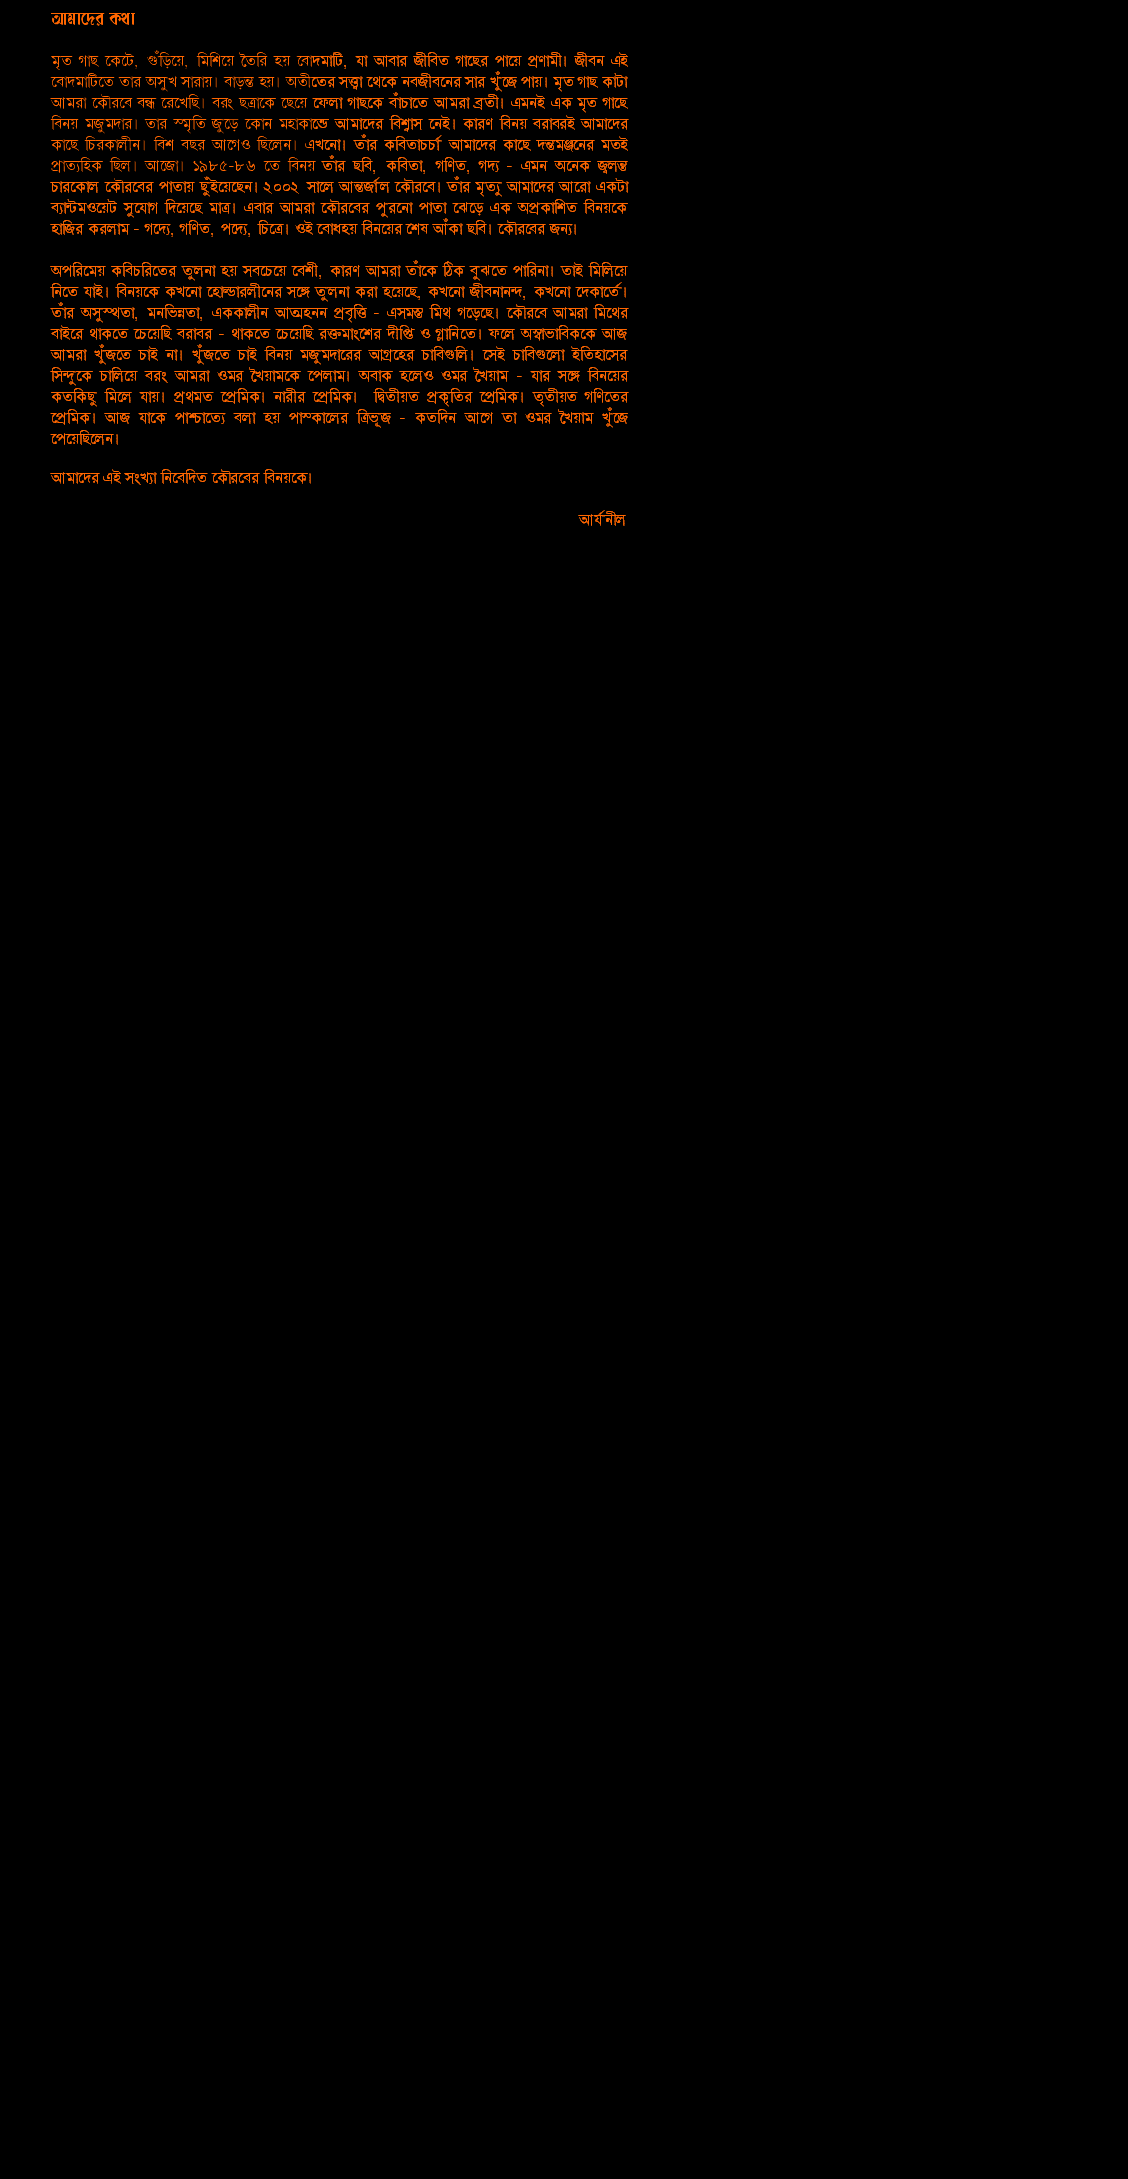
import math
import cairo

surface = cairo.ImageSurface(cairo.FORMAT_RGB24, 1128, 2179)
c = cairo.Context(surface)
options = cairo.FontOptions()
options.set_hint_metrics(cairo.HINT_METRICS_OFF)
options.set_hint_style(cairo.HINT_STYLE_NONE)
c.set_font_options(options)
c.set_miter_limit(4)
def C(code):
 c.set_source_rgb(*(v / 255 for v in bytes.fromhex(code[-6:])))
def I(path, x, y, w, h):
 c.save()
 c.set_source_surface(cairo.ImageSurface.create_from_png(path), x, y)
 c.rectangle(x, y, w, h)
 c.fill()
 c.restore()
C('000000')
c.paint()
I('1.png',50,13,579,513)
surface.write_to_png('o.png')
